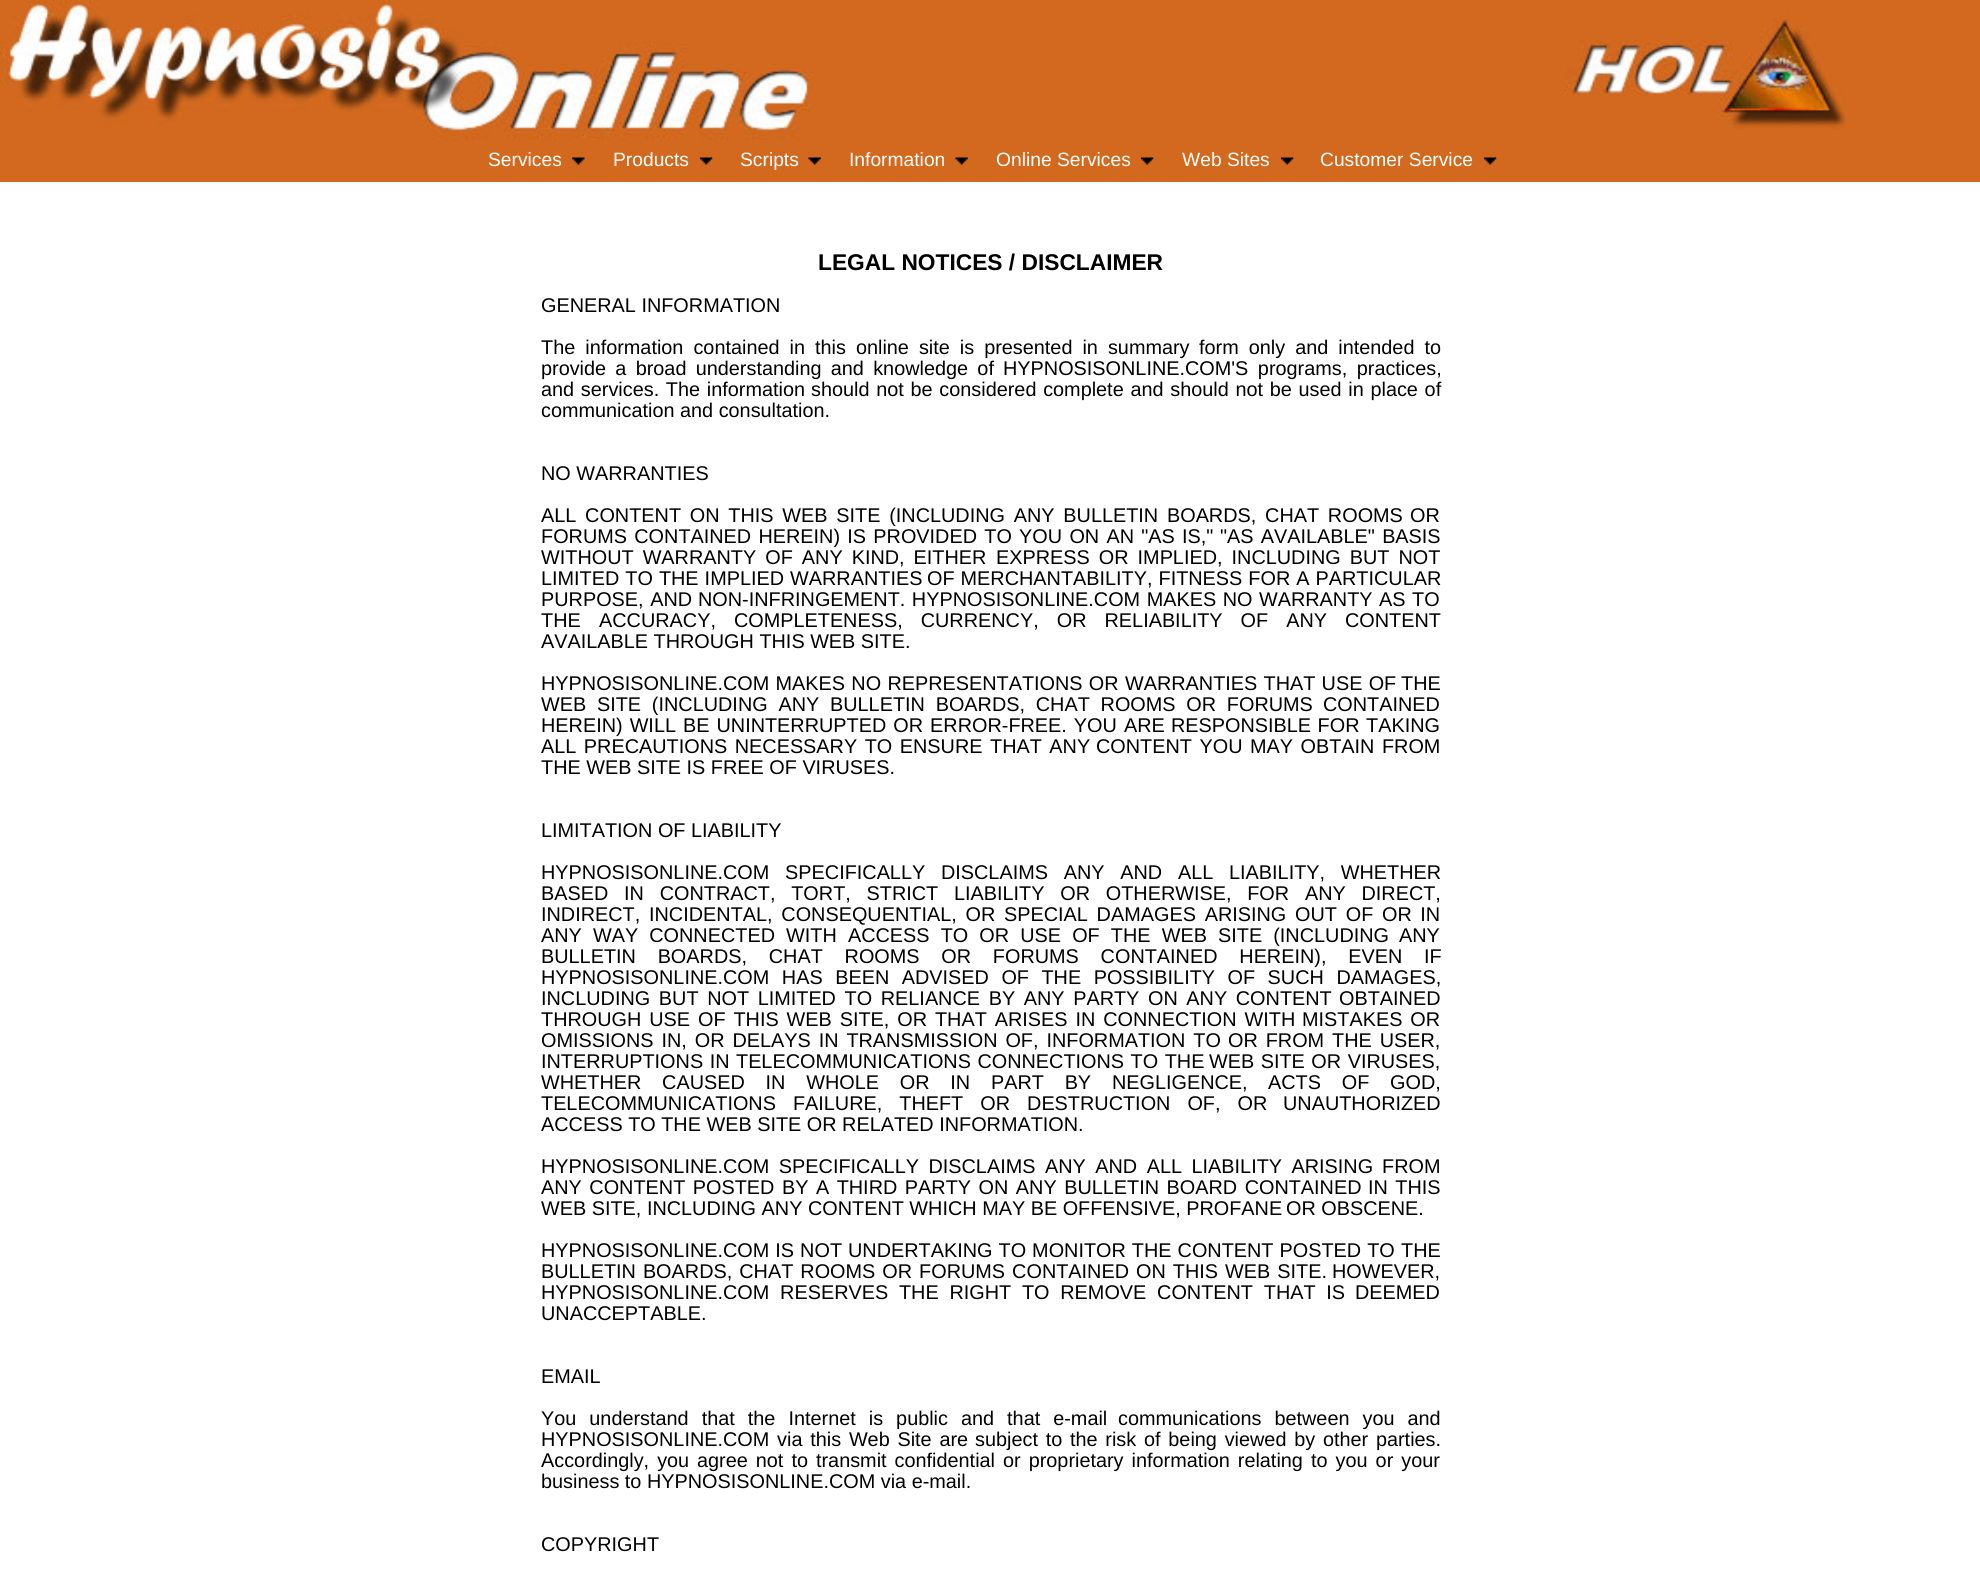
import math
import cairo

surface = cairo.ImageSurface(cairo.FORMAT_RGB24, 1980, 1584)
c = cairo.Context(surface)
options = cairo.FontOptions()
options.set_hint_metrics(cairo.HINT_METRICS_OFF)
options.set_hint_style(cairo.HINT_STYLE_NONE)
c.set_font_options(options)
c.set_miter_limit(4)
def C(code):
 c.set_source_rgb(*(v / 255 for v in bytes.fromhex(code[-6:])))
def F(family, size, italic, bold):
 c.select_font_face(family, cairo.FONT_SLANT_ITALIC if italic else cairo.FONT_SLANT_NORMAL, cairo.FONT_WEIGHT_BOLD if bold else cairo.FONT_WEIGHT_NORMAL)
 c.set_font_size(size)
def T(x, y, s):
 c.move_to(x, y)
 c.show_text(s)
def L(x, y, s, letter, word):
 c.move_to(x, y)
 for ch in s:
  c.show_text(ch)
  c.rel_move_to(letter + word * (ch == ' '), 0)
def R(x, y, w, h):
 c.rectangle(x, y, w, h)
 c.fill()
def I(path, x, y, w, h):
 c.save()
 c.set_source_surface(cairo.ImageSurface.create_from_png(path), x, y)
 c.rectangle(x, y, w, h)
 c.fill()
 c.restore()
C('ffffff')
c.paint()
C('d2691e')
R(812,0,1168,140)
I('1.png',0,0,812,140)
I('2.png',1564,12,281,117)
R(0,140,1980,42)
F('Liberation Sans',19.25,0,0)
C('ffffff')
T(488,166,'Services')
I('3.png',572,157,13,8)
T(613,166,'Products')
I('4.png',700,157,13,8)
T(740,166,'Scripts')
I('5.png',808,157,13,8)
T(849,166,'Information')
I('5.png',955,157,13,8)
T(996,166,'Online Services')
I('4.png',1141,157,13,8)
T(1182,166,'Web Sites')
I('6.png',1281,157,13,8)
T(1320,166,'Customer Service')
I('4.png',1484,157,13,8)
F('Liberation Sans',22.75,0,1)
C('000000')
T(818,270,'LEGAL NOTICES / DISCLAIMER')
F('Liberation Sans',19.85,0,0)
T(541,312,'GENERAL INFORMATION')
L(541,354,'The information contained in this online site is presented in summary',0,4.5)
L(1199,354,'form only and intended to',0,4.5)
L(541,375,'provide a broad understanding and knowledge of',0,3.75)
L(1003,375,'HYPNOSISONLINE.COM\'S programs, practices,',0,4)
L(541,396,'and services. The information',0,1.2)
L(811,396,'should not be considered complete and should not be used in place of',0,1.2)
T(541,417,'communication and consultation.')
T(541,480,'NO WARRANTIES')
L(541,522,'ALL CONTENT ON THIS WEB SITE (INCLUDING ANY BULLETIN BOARDS, CHAT ROOMS',0,3.25)
T(1410,522,'OR')
L(541,543,'FORUMS CONTAINED HEREIN) IS PROVIDED TO YOU ON AN "AS IS,"',0,1.75)
L(1220,543,'"AS AVAILABLE" BASIS',0,1.75)
L(541,564,'WITHOUT WARRANTY OF ANY KIND, EITHER',0,3.5)
L(996,564,'EXPRESS OR IMPLIED, INCLUDING BUT NOT',0,3.5)
L(541,585,'LIMITED TO THE IMPLIED WARRANTIES',0,.5)
L(927,585,'OF MERCHANTABILITY, FITNESS FOR A PARTICULAR',0,.5)
L(541,606,'PURPOSE, AND',0,1.2)
L(698,606,'NON-INFRINGEMENT. HYPNOSISONLINE.COM MAKES NO WARRANTY AS TO',0,1)
T(541,627,'THE')
L(599,627,'ACCURACY, COMPLETENESS, CURRENCY, OR RELIABILITY OF ANY CONTENT',0,12.5)
T(541,648,'AVAILABLE THROUGH THIS WEB SITE.')
L(541,690,'HYPNOSISONLINE.COM MAKES NO REPRESENTATIONS OR WARRANTIES THAT USE OF',0,.75)
T(1401,690,'THE')
L(541,711,'WEB SITE (INCLUDING ANY BULLETIN BOARDS, CHAT ROOMS OR FORUMS',0,5.25)
T(1323,711,'CONTAINED')
L(541,732,'HEREIN) WILL BE UNINTERRUPTED OR ERROR-FREE. YOU ARE',0,1.5)
L(1171,732,'RESPONSIBLE FOR TAKING',0,1)
L(541,753,'ALL PRECAUTIONS NECESSARY TO ENSURE THAT ANY',0,2)
L(1096,753,'CONTENT YOU MAY OBTAIN FROM',0,2)
T(541,774,'THE WEB SITE IS FREE OF VIRUSES.')
T(541,837,'LIMITATION OF LIABILITY')
L(541,879,'HYPNOSISONLINE.COM SPECIFICALLY DISCLAIMS ANY AND ALL LIABILITY, WHETHER',0,10.25)
L(541,900,'BASED IN CONTRACT, TORT, STRICT LIABILITY OR OTHERWISE, FOR ANY DIRECT,',0,10.25)
L(541,921,'INDIRECT, INCIDENTAL, CONSEQUENTIAL, OR SPECIAL DAMAGES ARISING OUT OF',0,3.25)
L(1382,921,'OR IN',0,3)
L(541,942,'ANY WAY CONNECTED WITH ACCESS TO OR USE OF THE WEB SITE (INCLUDING',0,5.6)
T(1399,942,'ANY')
L(541,963,'BULLETIN BOARDS, CHAT ROOMS OR FORUMS CONTAINED HEREIN), EVEN IF',0,16.25)
L(541,984,'HYPNOSISONLINE.COM HAS BEEN ADVISED OF THE POSSIBILITY OF SUCH DAMAGES,',0,7)
L(541,1005,'INCLUDING BUT NOT LIMITED TO RELIANCE BY ANY PARTY ON ANY CONTENT',0,3.1)
T(1339,1005,'OBTAINED')
L(541,1026,'THROUGH USE OF THIS WEB SITE, OR THAT ARISES IN CONNECTION WITH',0,2.4)
L(1302,1026,'MISTAKES OR',0,2.4)
L(541,1047,'OMISSIONS IN, OR DELAYS IN TRANSMISSION OF, INFORMATION TO',0,2.4)
L(1228,1047,'OR FROM THE USER,',0,2.4)
L(541,1068,'INTERRUPTIONS IN TELECOMMUNICATIONS CONNECTIONS TO THE',0,1)
L(1209,1068,'WEB SITE OR VIRUSES,',0,1)
L(541,1089,'WHETHER CAUSED IN WHOLE OR IN PART BY NEGLIGENCE,',0,15.25)
L(1268,1089,'ACTS OF GOD,',0,15.25)
L(541,1110,'TELECOMMUNICATIONS FAILURE, THEFT OR DESTRUCTION OF, OR',0,11.5)
T(1283,1110,'UNAUTHORIZED')
T(541,1131,'ACCESS TO THE WEB SITE OR RELATED INFORMATION.')
L(541,1173,'HYPNOSISONLINE.COM SPECIFICALLY DISCLAIMS ANY AND ALL LIABILITY ARISING',0,4)
T(1382,1173,'FROM')
L(541,1194,'ANY CONTENT POSTED BY A THIRD PARTY ON ANY BULLETIN BOARD CONTAINED',0,2)
L(1368,1194,'IN THIS',0,2)
T(541,1215,'WEB SITE, INCLUDING ANY CONTENT WHICH MAY BE OFFENSIVE, PROFANE')
T(1286,1215,'OR OBSCENE.')
L(541,1257,'HYPNOSISONLINE.COM IS NOT UNDERTAKING TO MONITOR THE CONTENT POSTED TO',0,.5)
T(1401,1257,'THE')
L(541,1278,'BULLETIN BOARDS, CHAT ROOMS OR FORUMS CONTAINED ON THIS WEB SITE.',0,1.5)
T(1332,1278,'HOWEVER,')
L(541,1299,'HYPNOSISONLINE.COM RESERVES THE RIGHT TO REMOVE CONTENT THAT IS',0,5.25)
T(1355,1299,'DEEMED')
T(541,1320,'UNACCEPTABLE.')
T(541,1383,'EMAIL')
L(541,1425,'You understand that the Internet is public and that e-mail',0,7.5)
L(1118,1425,'communications between you and',0,7.5)
L(541,1446,'HYPNOSISONLINE.COM via this Web Site are',0,2.25)
L(975,1446,'subject to the risk of being viewed by other parties.',0,2.25)
L(541,1467,'Accordingly, you',0,2.5)
L(697,1467,'agree not to transmit confidential or proprietary information relating',0,2.5)
L(1311,1467,'to you or your',0,2.5)
T(541,1488,'business to HYPNOSISONLINE.COM via e-mail.')
T(541,1551,'COPYRIGHT')
surface.write_to_png('o.png')
